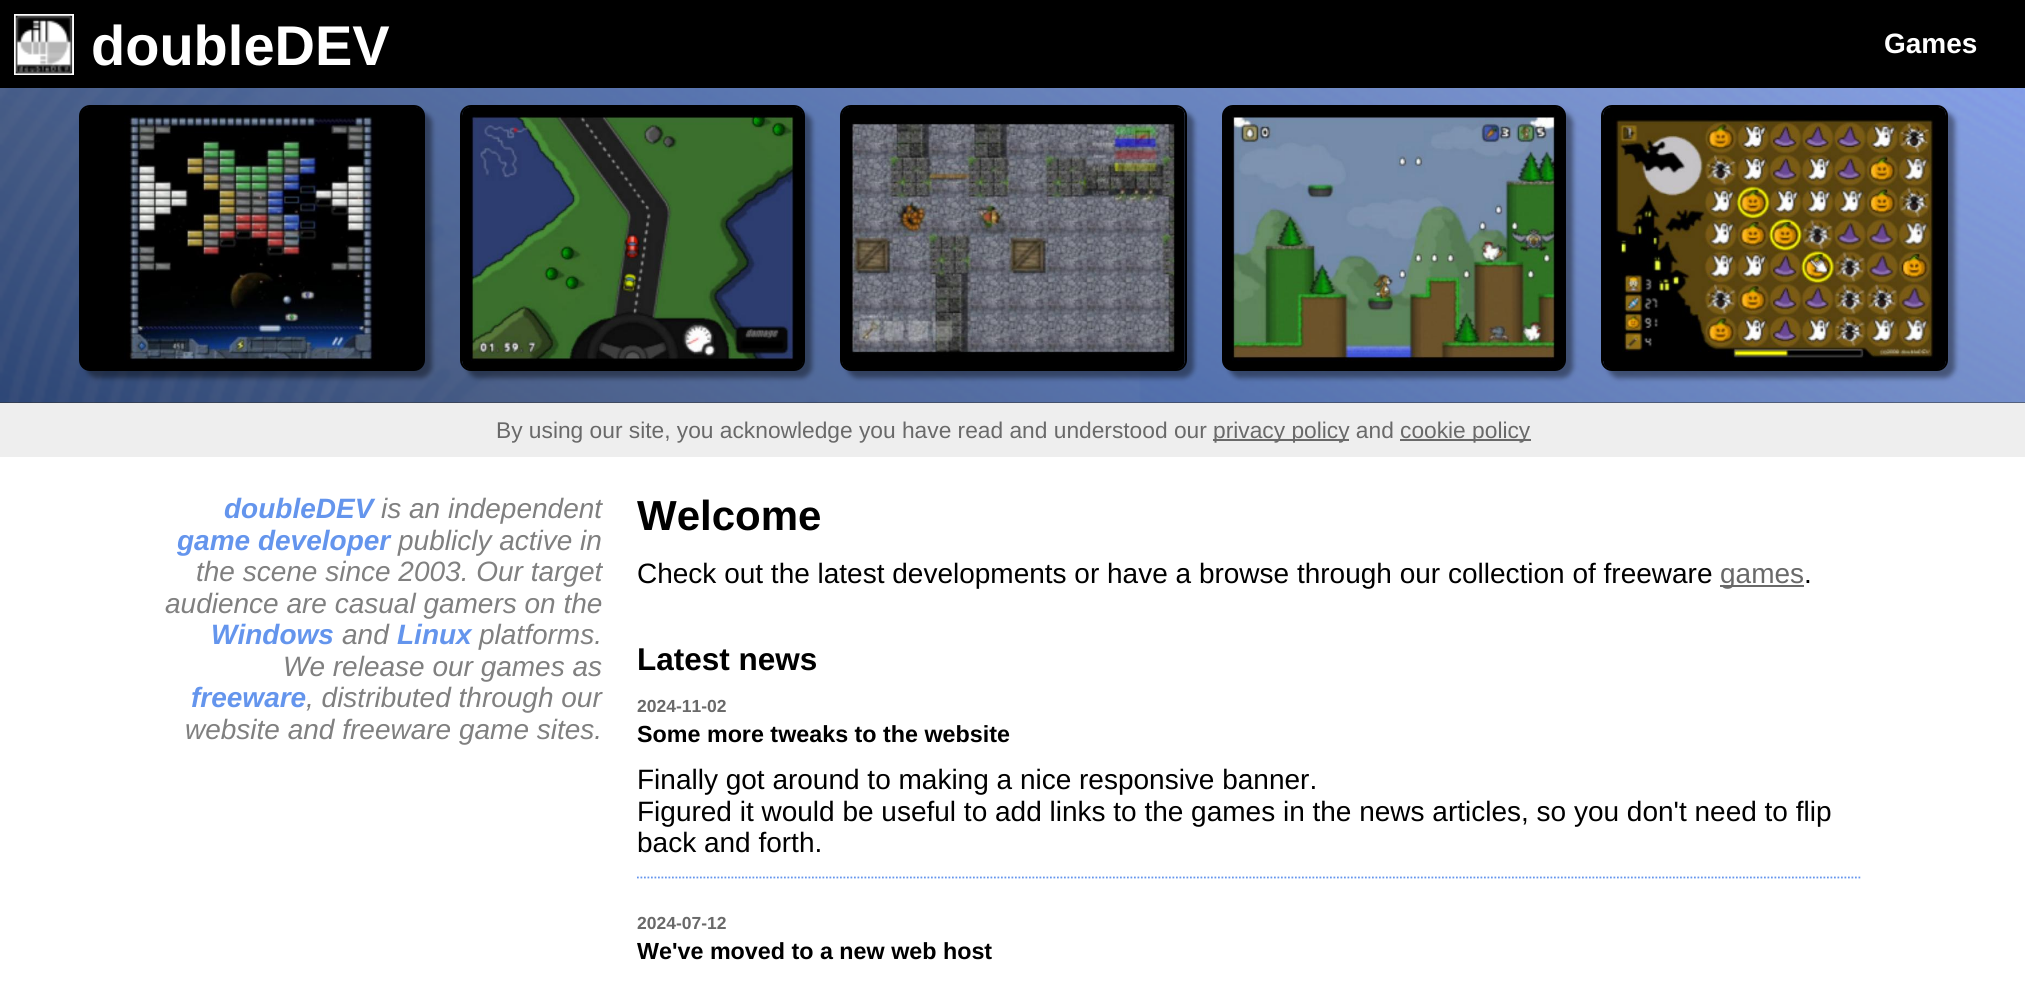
import math
import cairo

surface = cairo.ImageSurface(cairo.FORMAT_RGB24, 2025, 990)
c = cairo.Context(surface)
options = cairo.FontOptions()
options.set_hint_metrics(cairo.HINT_METRICS_OFF)
options.set_hint_style(cairo.HINT_STYLE_NONE)
c.set_font_options(options)
c.set_miter_limit(4)
def C(code):
 c.set_source_rgb(*(v / 255 for v in bytes.fromhex(code[-6:])))
def F(family, size, italic, bold):
 c.select_font_face(family, cairo.FONT_SLANT_ITALIC if italic else cairo.FONT_SLANT_NORMAL, cairo.FONT_WEIGHT_BOLD if bold else cairo.FONT_WEIGHT_NORMAL)
 c.set_font_size(size)
def T(x, y, s):
 c.move_to(x, y)
 c.show_text(s)
def R(x, y, w, h):
 c.rectangle(x, y, w, h)
 c.fill()
def Q(x, y, w, h, r):
 c.new_sub_path()
 for i, (u, v) in enumerate([(x + w - r, y + h - r), (x + r, y + h - r), (x + r, y + r), (x + w - r, y + r)]):
  c.arc(u, v, r, i * math.pi / 2, (i + 1) * math.pi / 2)
 c.close_path()
def S(x, y, w, h, r, blur, alpha):
 c.push_group_with_content(cairo.CONTENT_ALPHA)
 c.set_operator(cairo.OPERATOR_SOURCE)
 for i in range(15, -16, -2):
  e = blur * i / 6
  if min(w, h) + 2 * e > 0:
   c.set_source_rgba(0, 0, 0, alpha * math.erfc((i - 1) / 8.5) / 2)
   Q(x - e, y - e, w + 2 * e, h + 2 * e, max(0, min(r + e + blur * .6, min(w, h) / 2 + e)))
   c.fill()
 c.mask(c.pop_group())
def I(path, x, y, w, h):
 c.save()
 c.set_source_surface(cairo.ImageSurface.create_from_png(path), x, y)
 c.rectangle(x, y, w, h)
 c.fill()
 c.restore()
C('333333')
c.paint()
C('000000')
R(0,0,2025,88)
c.rectangle(15,15,58,59)
C('ffffff')
c.stroke()
I('1.png',15,15,58,59)
F('Liberation Sans',56,0,1)
T(91,65,'doubleDEV')
F('Liberation Sans',28,0,1)
T(1884,53,'Games')
I('2.png',0,88,2025,315)
C('000000')
S(86,112,346,266,11,2.5,.4)
Q(80,106,344,264,10)
C('000000')
c.stroke()
I('3.png',81,107,342,262)
C('000000')
S(467,112,345,266,11,2.5,.4)
Q(461,106,343,264,10)
C('000000')
c.stroke()
I('4.png',462,107,341,262)
C('000000')
S(847,112,347,266,11,2.5,.4)
Q(841,106,345,264,10)
C('000000')
c.stroke()
I('5.png',842,107,343,262)
C('000000')
S(1229,112,344,266,11,2.5,.4)
Q(1223,106,342,264,10)
C('000000')
c.stroke()
I('6.png',1224,107,340,262)
C('000000')
S(1608,112,347,266,11,2.5,.4)
Q(1602,106,345,264,10)
C('000000')
c.stroke()
I('7.png',1603,107,343,262)
C('eeeeee')
R(0,403,2025,54)
F('Liberation Sans',22.75,0,0)
C('696969')
T(496,438,'By using our site, you acknowledge you have read and understood our')
R(1213,439,136,2)
T(1213,438,'privacy policy and')
R(1400,439,131,2)
T(1400,438,'cookie policy')
C('ffffff')
R(0,457,2025,533)
F('Liberation Sans',28,1,1)
C('6495ed')
T(224,518,'doubleDEV')
F('Liberation Sans',28,1,0)
C('808080')
T(381,518,'is an independent')
F('Liberation Sans',28,1,1)
C('6495ed')
T(177,550,'game developer')
F('Liberation Sans',28,1,0)
C('808080')
T(398,550,'publicly active in')
T(196,581,'the scene since 2003. Our target')
T(165,613,'audience are casual gamers on the')
F('Liberation Sans',28,1,1)
C('6495ed')
T(211,644,'Windows')
F('Liberation Sans',28,1,0)
C('808080')
T(342,644,'and')
F('Liberation Sans',28,1,1)
C('6495ed')
T(397,644,'Linux')
F('Liberation Sans',28,1,0)
C('808080')
T(479,644,'platforms.')
T(283,676,'We release our games as')
F('Liberation Sans',28,1,1)
C('6495ed')
T(191,707,'freeware')
F('Liberation Sans',28,1,0)
C('808080')
T(306,707,', distributed through our')
T(185,739,'website and freeware game sites.')
F('Liberation Sans',42,0,1)
C('000000')
T(637,530,'Welcome')
F('Liberation Sans',28,0,0)
T(637,583,'Check out the latest developments or have a browse through our collection of freeware')
C('696969')
R(1720,585,84,2)
T(1720,583,'games')
C('000000')
T(1804,583,'.')
F('Liberation Sans',31.5,0,1)
T(637,670,'Latest news')
c.new_path()
c.move_to(637,877.5)
c.line_to(1862,877.5)
C('6495ed')
c.set_line_width(1.8)
c.set_dash([1.75,1.75])
c.stroke()
F('Liberation Sans',17.5,0,1)
C('696969')
T(637,712,'2024-11-02')
F('Liberation Sans',23.3,0,1)
C('000000')
T(637,742,'Some more tweaks to the website')
F('Liberation Sans',28,0,0)
T(637,789,'Finally got around to making a nice responsive banner.')
T(637,821,'Figured it would be useful to add links to the games in the news articles, so you don\'t need to flip')
T(637,852,'back and forth.')
F('Liberation Sans',17.5,0,1)
C('696969')
T(637,929,'2024-07-12')
F('Liberation Sans',23.3,0,1)
C('000000')
T(637,959,'We\'ve moved to a new web host')
surface.write_to_png('o.png')
